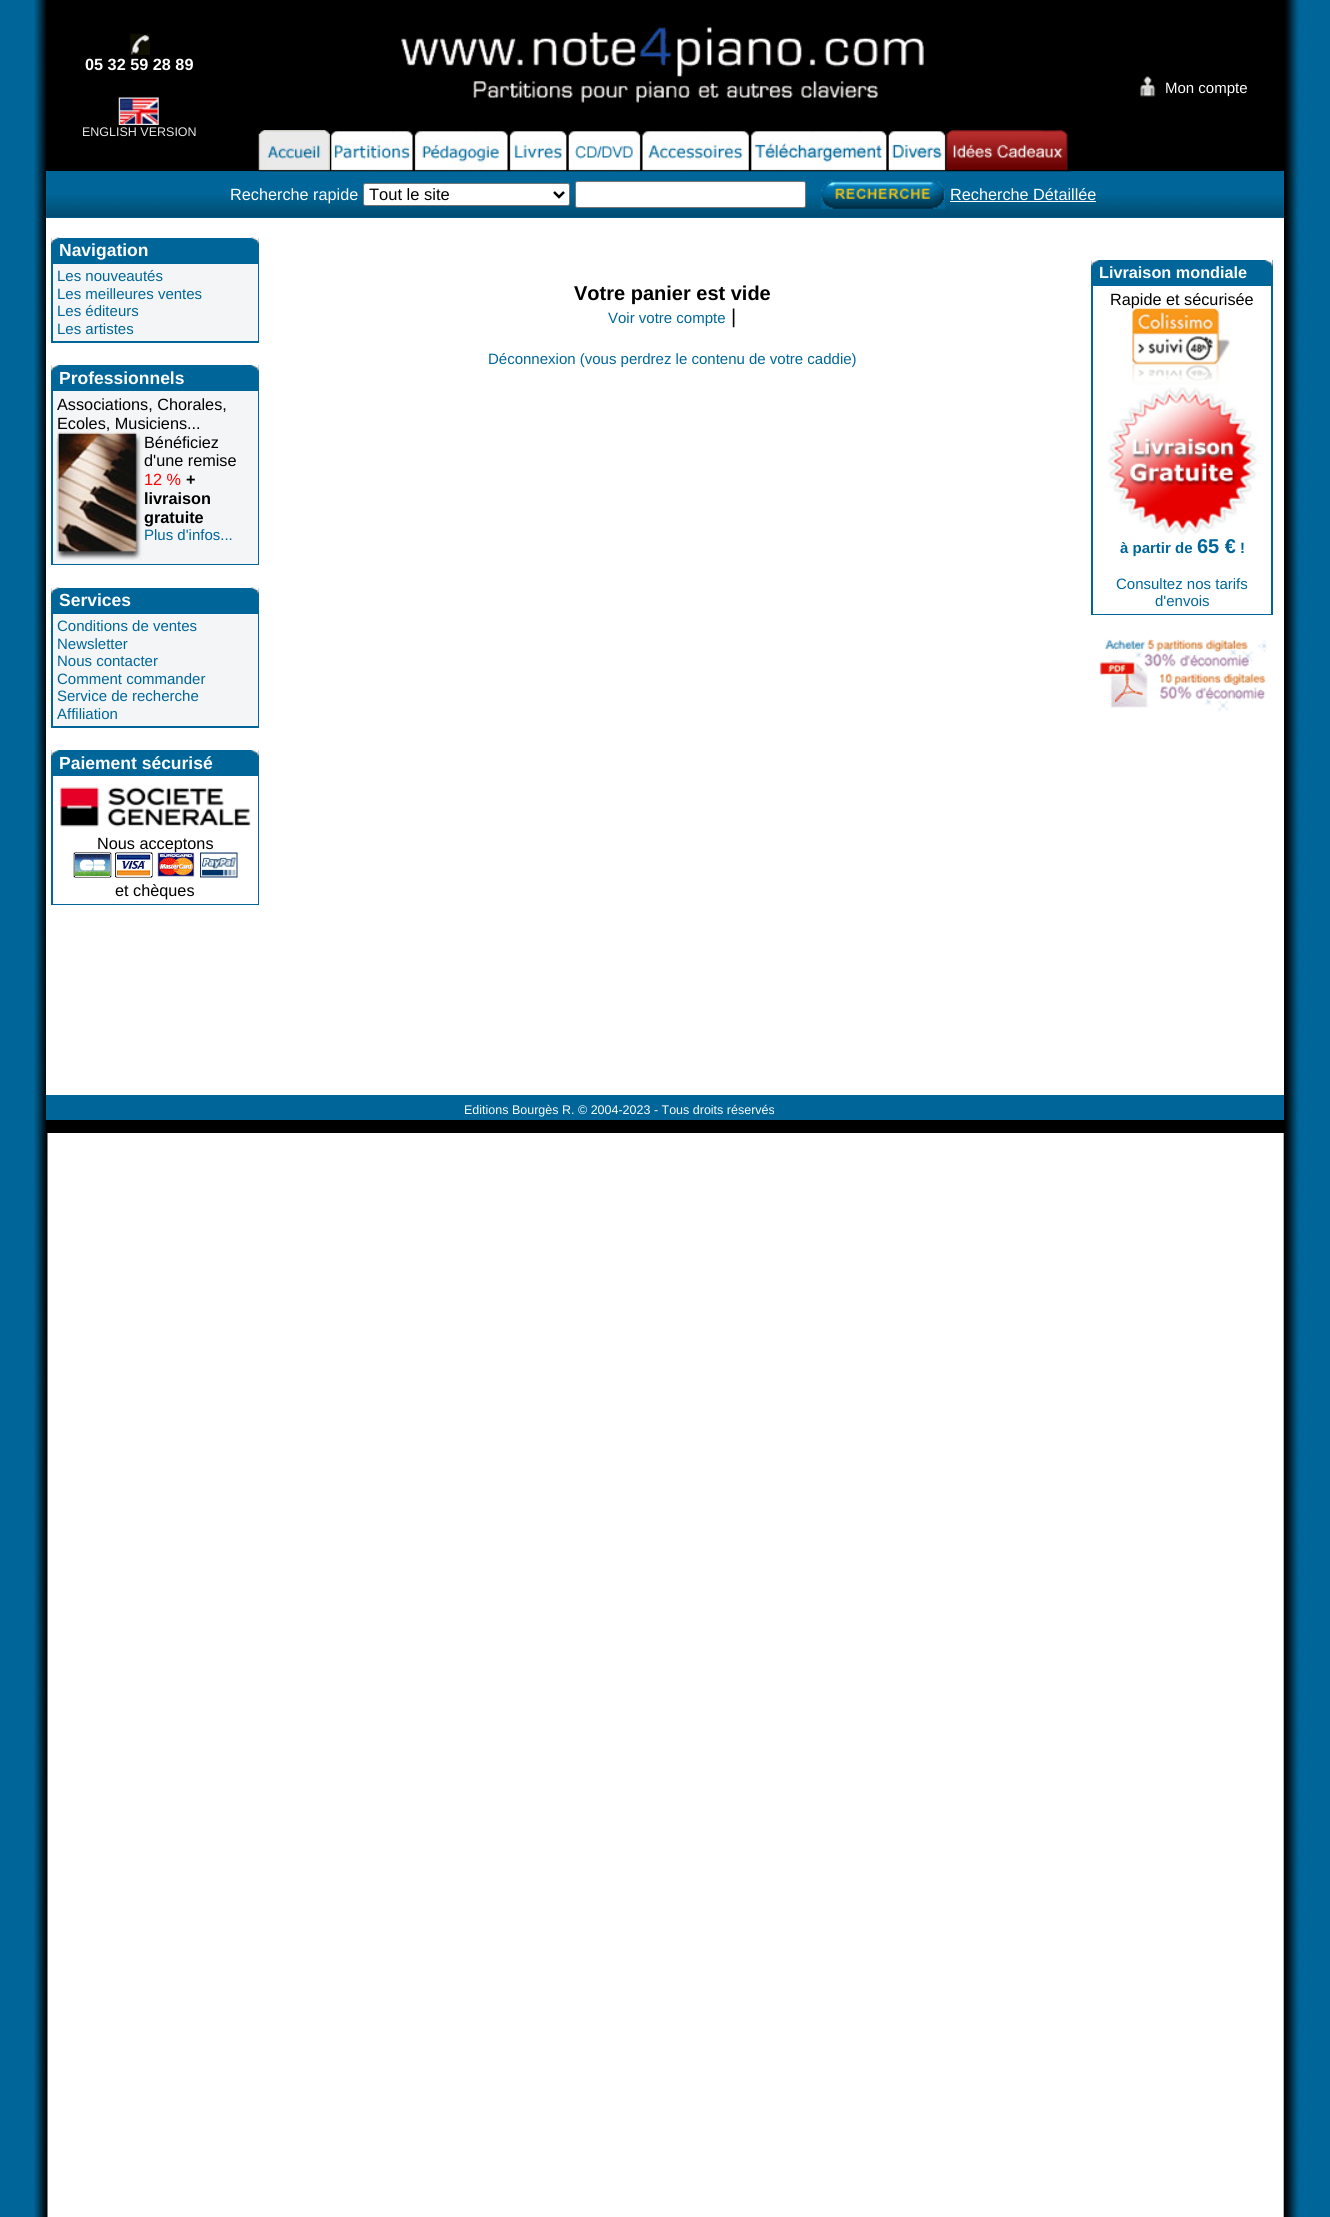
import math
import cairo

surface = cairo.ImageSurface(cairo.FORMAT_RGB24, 1330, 2217)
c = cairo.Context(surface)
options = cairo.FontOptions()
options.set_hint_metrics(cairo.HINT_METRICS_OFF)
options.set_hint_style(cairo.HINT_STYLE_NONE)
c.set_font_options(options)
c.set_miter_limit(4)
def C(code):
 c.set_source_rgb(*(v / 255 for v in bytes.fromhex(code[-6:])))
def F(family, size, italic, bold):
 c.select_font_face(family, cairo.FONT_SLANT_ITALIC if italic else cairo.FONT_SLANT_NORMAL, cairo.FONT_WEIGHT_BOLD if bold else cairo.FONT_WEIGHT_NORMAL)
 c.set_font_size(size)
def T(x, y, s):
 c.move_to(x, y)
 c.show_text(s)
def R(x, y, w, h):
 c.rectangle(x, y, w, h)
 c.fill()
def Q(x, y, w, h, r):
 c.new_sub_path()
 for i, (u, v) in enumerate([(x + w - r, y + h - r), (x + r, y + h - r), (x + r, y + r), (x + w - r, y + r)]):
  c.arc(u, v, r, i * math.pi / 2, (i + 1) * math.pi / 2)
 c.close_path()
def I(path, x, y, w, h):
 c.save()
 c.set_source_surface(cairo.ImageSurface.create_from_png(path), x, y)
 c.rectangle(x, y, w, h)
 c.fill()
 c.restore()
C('006699')
c.paint()
I('1.png',34,0,1265,2217)
C('000000')
R(46,1120,1238,13)
R(46,0,1238,171)
I('2.png',130,33,20,22)
F('Liberation Sans',16.25,0,1)
C('ffffff')
T(85,70,'05 32 59 28 89')
I('3.png',118,97,41,28)
F('Liberation Sans',12.5,0,0)
C('e7e7e7')
T(82,136,'ENGLISH VERSION')
I('4.png',401,27,523,76)
C('006699')
R(46,171,1238,47)
I('5.png',258,130,72,42)
I('6.png',330,131,84,41)
I('7.png',413,131,96,41)
I('8.png',508,131,60,41)
I('9.png',567,131,75,41)
I('10.png',641,131,109,41)
I('11.png',750,131,138,41)
I('12.png',887,131,60,41)
I('13.png',946,130,126,42)
I('14.png',1139,76,17,22)
F('Liberation Sans',15,0,0)
C('ffffff')
T(1165,93,'Mon compte')
R(46,218,1238,20)
I('15.png',46,195,1238,23)
F('Liberation Sans',16.25,0,0)
T(230,200,'Recherche rapide')
Q(363.5,183.5,206,22,2)
c.fill_preserve()
C('767676')
c.set_line_width(1)
c.stroke()
c.new_path()
c.move_to(554,192)
c.line_to(559,197)
c.line_to(564,192)
C('000000')
c.set_line_width(2.5)
c.stroke()
F('Liberation Sans',16.5,0,0)
T(369,200,'Tout le site')
C('ffffff')
Q(575.5,181.5,230,26,2)
c.fill_preserve()
C('767676')
c.set_line_width(1)
c.stroke()
I('16.png',821,180,124,29)
F('Liberation Sans',16.25,0,0)
C('ffffff')
T(950,200,'Recherche Détaillée')
R(950,201,146,1)
R(46,238,2,787)
C('006699')
R(51,238,208,105)
I('17.png',51,237,8,7)
I('18.png',251,237,8,7)
F('Liberation Sans',17.5,0,1)
C('ffffff')
T(59,256,'Navigation')
C('f3f5f6')
R(53,264,205,77)
F('Liberation Sans',15,0,0)
C('006699')
T(57,281,'Les nouveautés')
T(57,299,'Les meilleures ventes')
T(57,316,'Les éditeurs')
T(57,334,'Les artistes')
R(51,365,208,200)
I('19.png',51,365,8,7)
I('20.png',251,365,8,7)
F('Liberation Sans',17.5,0,1)
C('ffffff')
T(59,384,'Professionnels')
C('f3f5f6')
R(53,391,205,173)
F('Liberation Sans',16.25,0,0)
C('000000')
T(57,410,'Associations, Chorales,')
T(57,429,'Ecoles, Musiciens...')
I('21.png',56,432,88,128)
T(144,448,'Bénéficiez')
T(144,466,'d\'une remise')
C('ff0000')
T(144,485,'12 %')
F('Liberation Sans',16.25,0,1)
C('000000')
T(186,485,'+')
T(144,504,'livraison')
T(144,523,'gratuite')
F('Liberation Sans',15,0,0)
C('006699')
T(144,540,'Plus d\'infos...')
R(51,588,208,140)
I('22.png',51,587,8,7)
I('23.png',251,587,8,7)
F('Liberation Sans',17.5,0,1)
C('ffffff')
T(59,606,'Services')
C('f3f5f6')
R(53,614,205,112)
F('Liberation Sans',15,0,0)
C('006699')
T(57,631,'Conditions de ventes')
T(57,649,'Newsletter')
T(57,666,'Nous contacter')
T(57,684,'Comment commander')
T(57,701,'Service de recherche')
T(57,719,'Affiliation')
R(51,750,208,155)
I('19.png',51,750,8,7)
I('20.png',251,750,8,7)
F('Liberation Sans',17.5,0,1)
C('ffffff')
T(59,769,'Paiement sécurisé')
R(53,776,205,128)
I('24.png',60,787,191,40)
F('Liberation Sans',16.25,0,0)
C('000000')
T(97,849,'Nous acceptons')
I('25.png',73,852,39,26)
I('26.png',115,852,38,26)
I('27.png',157,852,38,25)
I('28.png',200,852,38,26)
T(115,896,'et chèques')
F('Liberation Sans',20,0,1)
T(574,300,'Votre panier est vide')
F('Liberation Sans',15,0,0)
C('006699')
T(608,323,'Voir votre compte')
F('Liberation Sans',20,0,0)
C('000000')
T(731,323,'|')
F('Liberation Sans',15,0,0)
C('006699')
T(488,364,'Déconnexion (vous perdrez le contenu de votre caddie)')
C('ffffff')
R(1283,238,1,787)
C('006699')
R(1091,260,182,355)
I('19.png',1091,260,8,7)
I('29.png',1265,260,8,7)
F('Liberation Sans',16.25,0,1)
C('ffffff')
T(1099,278,'Livraison mondiale')
R(1093,286,178,328)
F('Liberation Sans',16.25,0,0)
C('000000')
T(1110,305,'Rapide et sécurisée')
I('30.png',1132,308,99,77)
I('31.png',1107,387,151,148)
F('Liberation Sans',15,0,1)
C('006699')
T(1120,553,'à partir de')
F('Liberation Sans',20,0,1)
T(1197,553,'65 €')
F('Liberation Sans',15,0,1)
T(1240,553,'!')
F('Liberation Sans',15,0,0)
T(1116,589,'Consultez nos tarifs')
T(1155,606,'d\'envois')
I('32.png',1099,639,168,73)
C('ffffff')
R(46,1025,1238,70)
C('006699')
R(46,1095,1238,25)
F('Liberation Sans',12.5,0,0)
C('ffffff')
T(464,1114,'Editions Bourgès R. © 2004-2023 - Tous droits réservés')
surface.write_to_png('o.png')
